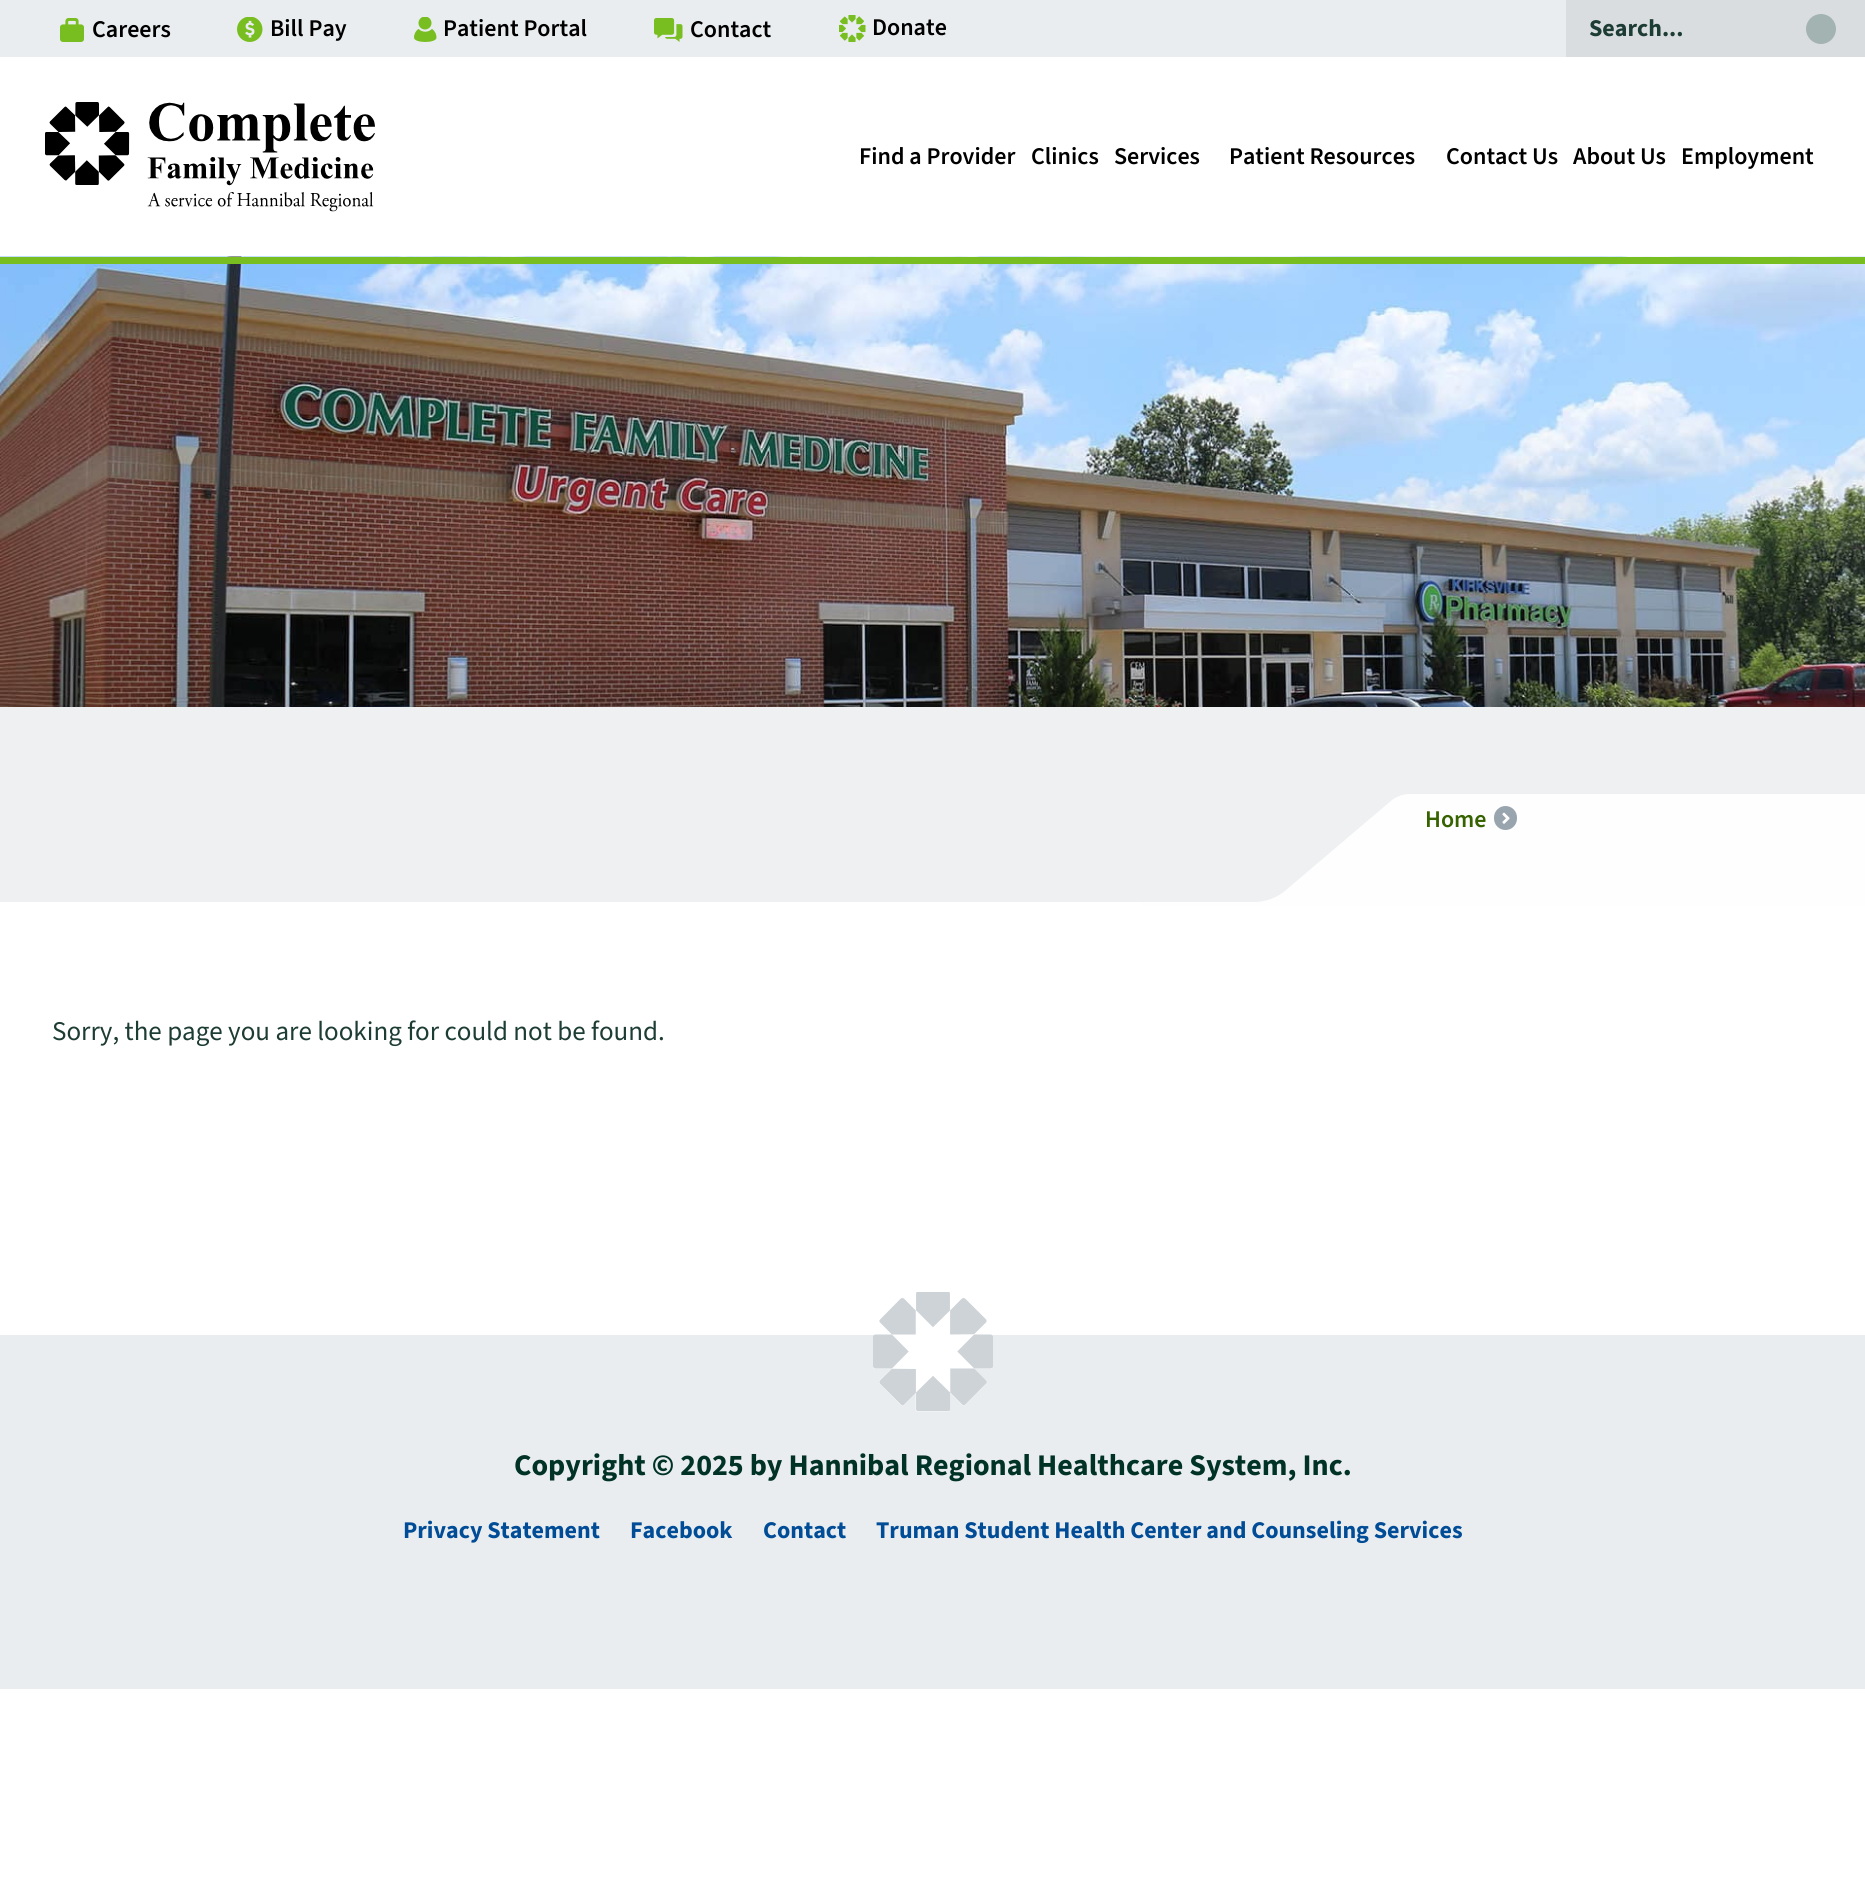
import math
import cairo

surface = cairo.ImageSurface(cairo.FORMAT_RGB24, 1865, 1904)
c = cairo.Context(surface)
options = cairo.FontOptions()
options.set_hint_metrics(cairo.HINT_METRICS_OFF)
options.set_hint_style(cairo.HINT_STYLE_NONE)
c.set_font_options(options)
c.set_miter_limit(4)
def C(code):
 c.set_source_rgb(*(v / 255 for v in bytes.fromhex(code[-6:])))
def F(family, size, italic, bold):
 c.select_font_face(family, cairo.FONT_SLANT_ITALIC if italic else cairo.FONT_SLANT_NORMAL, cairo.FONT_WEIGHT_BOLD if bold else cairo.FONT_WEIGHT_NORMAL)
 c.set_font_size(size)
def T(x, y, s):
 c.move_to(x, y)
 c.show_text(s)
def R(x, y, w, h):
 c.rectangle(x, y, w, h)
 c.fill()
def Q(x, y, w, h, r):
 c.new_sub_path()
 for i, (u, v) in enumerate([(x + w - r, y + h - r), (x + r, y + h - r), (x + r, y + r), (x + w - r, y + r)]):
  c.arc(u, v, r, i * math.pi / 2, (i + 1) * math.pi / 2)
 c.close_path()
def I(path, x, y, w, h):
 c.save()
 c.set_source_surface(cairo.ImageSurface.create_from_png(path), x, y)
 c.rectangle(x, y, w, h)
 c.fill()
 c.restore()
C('ffffff')
c.paint()
C('eaedef')
R(0,0,1566,57)
I('1.png',60,18,24,24)
F('Source Sans 3 SemiBold',24,0,0)
C('000000')
T(92,37,'Careers')
I('2.png',237,17,26,25)
T(270,36,'Bill Pay')
I('3.png',414,17,23,25)
T(443,36,'Patient Portal')
I('4.png',654,18,29,24)
T(690,37,'Contact')
I('5.png',839,15,27,27)
T(872,35,'Donate')
C('d9dde0')
R(1566,0,299,57)
F('Source Sans 3',24,0,1)
C('1d3c34')
T(1589,36,'Search...')
C('a3b3b2')
c.new_path()
c.arc(1821,29,15,0,2 * math.pi)
c.fill()
I('6.png',45,102,330,110)
F('Source Sans 3 SemiBold',24,0,0)
C('000000')
T(859,164,'Find a Provider')
T(1031,164,'Clinics')
T(1114,164,'Services')
T(1229,164,'Patient Resources')
T(1446,164,'Contact Us')
T(1573,164,'About Us')
T(1681,164,'Employment')
I('7.png',0,256,1865,451)
C('78be21')
R(0,257,1865,7)
C('eef0f1')
R(0,707,1865,195)
C('fefefe')
c.new_path()
c.move_to(1392,800)
c.line_to(1286,890)
c.curve_to(1277,898,1265,902,1254,902)
c.line_to(1140,902)
c.line_to(1140,906)
c.line_to(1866,906)
c.line_to(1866,794)
c.line_to(1410,794)
c.curve_to(1404,794,1397,796,1392,800)
c.close_path()
c.fill()
C('376200')
T(1425,827,'Home')
C('98a4ae')
Q(1494,806,23,24,11.5)
c.fill()
I('8.png',1502,812,8,12)
F('Source Sans 3',27,0,0)
C('1d3c34')
T(52,1040,'Sorry, the page you are looking for could not be found.')
C('eaedef')
R(0,1335,1865,354)
I('9.png',873,1292,120,120)
F('Source Sans 3',30,0,1)
C('003326')
T(514,1475,'Copyright © 2025 by Hannibal Regional Healthcare System, Inc.')
F('Source Sans 3',24,0,1)
C('004c97')
T(403,1538,'Privacy Statement')
T(630,1538,'Facebook')
T(763,1538,'Contact')
T(876,1538,'Truman Student Health Center and Counseling Services')
surface.write_to_png('o.png')
